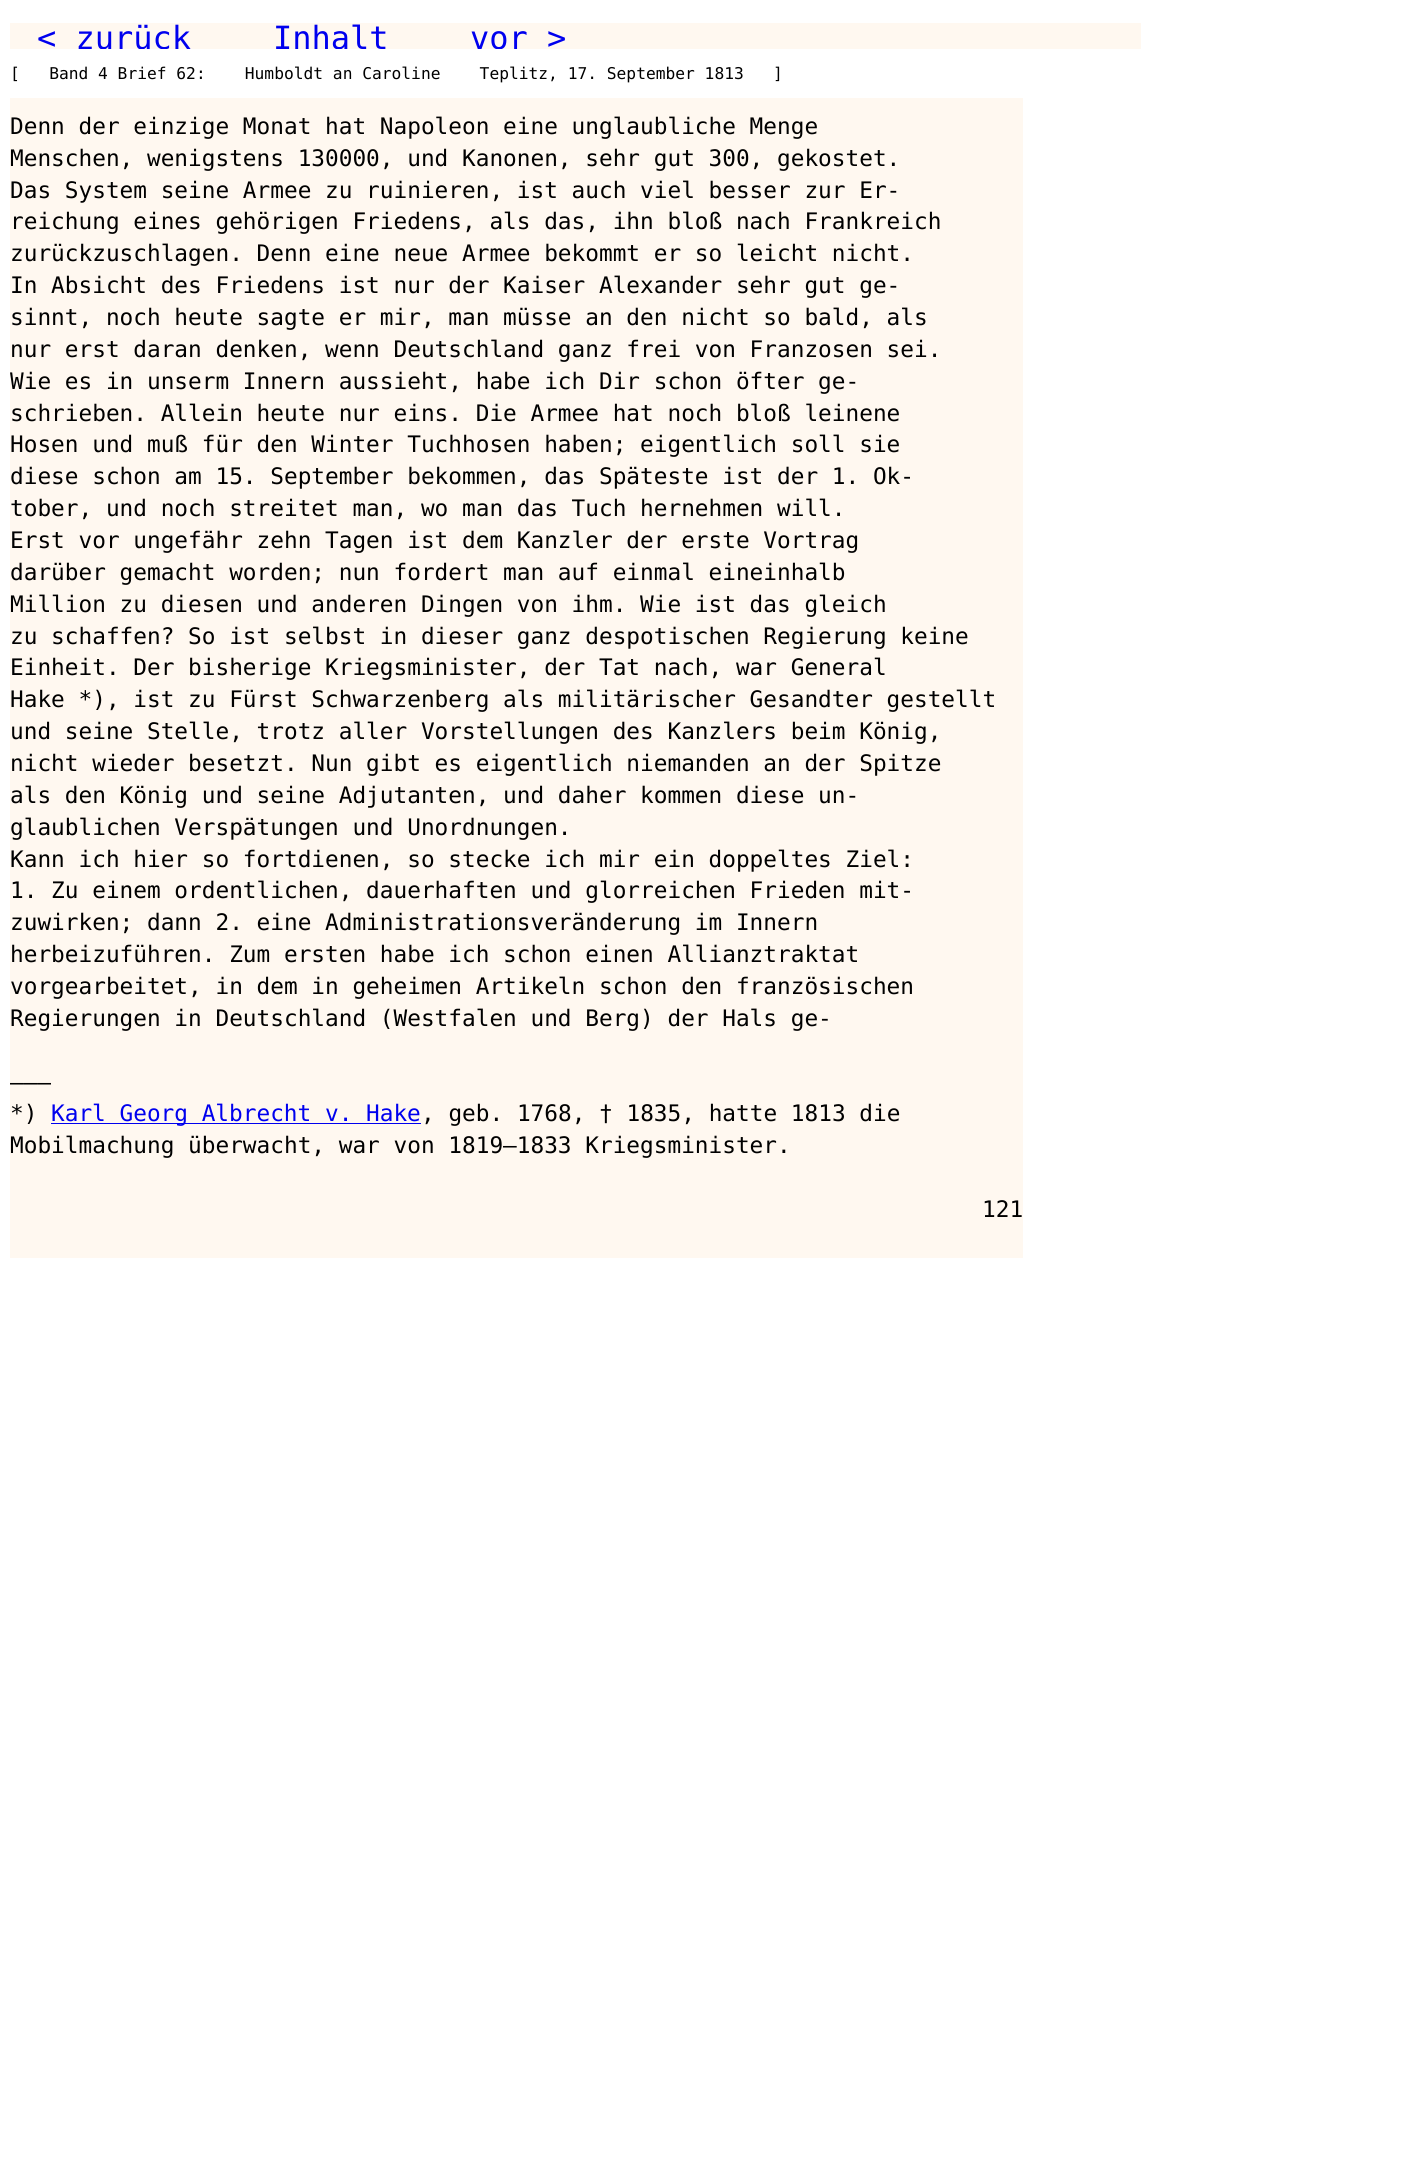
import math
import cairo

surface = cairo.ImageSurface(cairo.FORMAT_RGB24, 1425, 2166)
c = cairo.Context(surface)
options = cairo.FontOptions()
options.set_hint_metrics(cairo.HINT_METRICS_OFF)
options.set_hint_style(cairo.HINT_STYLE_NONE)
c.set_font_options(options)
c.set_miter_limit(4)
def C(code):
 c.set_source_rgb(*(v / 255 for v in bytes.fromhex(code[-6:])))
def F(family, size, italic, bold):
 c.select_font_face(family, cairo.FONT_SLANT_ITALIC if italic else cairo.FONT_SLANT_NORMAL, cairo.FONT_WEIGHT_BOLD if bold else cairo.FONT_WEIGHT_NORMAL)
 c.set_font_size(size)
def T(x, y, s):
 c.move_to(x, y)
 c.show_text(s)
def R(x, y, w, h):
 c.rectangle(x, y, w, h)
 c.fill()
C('ffffff')
c.paint()
C('fff8f0')
R(10,23,1131,26)
F('DejaVu Sans Mono',32,0,0)
C('0000ee')
T(37,49,'< zurück')
T(273,49,'Inhalt')
T(470,49,'vor >')
C('ffffff')
R(101,49,401,1)
F('DejaVu Sans Mono',16.25,0,0)
C('000000')
T(10,79,'[   Band 4 Brief 62:    Humboldt an Caroline    Teplitz, 17. September 1813   ]')
C('fff8f0')
R(10,98,1013,1160)
F('DejaVu Sans Mono',22.75,0,0)
C('000000')
T(10,134,'Denn der einzige Monat hat Napoleon eine unglaubliche Menge')
T(10,166,'Menschen, wenigstens 130000, und Kanonen, sehr gut 300, gekostet.')
T(10,198,'Das System seine Armee zu ruinieren, ist auch viel besser zur Er-')
T(10,229,'reichung eines gehörigen Friedens, als das, ihn bloß nach Frankreich')
T(10,261,'zurückzuschlagen. Denn eine neue Armee bekommt er so leicht nicht.')
T(10,293,'In Absicht des Friedens ist nur der Kaiser Alexander sehr gut ge-')
T(10,325,'sinnt, noch heute sagte er mir, man müsse an den nicht so bald, als')
T(10,357,'nur erst daran denken, wenn Deutschland ganz frei von Franzosen sei.')
T(10,389,'Wie es in unserm Innern aussieht, habe ich Dir schon öfter ge-')
T(10,421,'schrieben. Allein heute nur eins. Die Armee hat noch bloß leinene')
T(10,452,'Hosen und muß für den Winter Tuchhosen haben; eigentlich soll sie')
T(10,484,'diese schon am 15. September bekommen, das Späteste ist der 1. Ok-')
T(10,516,'tober, und noch streitet man, wo man das Tuch hernehmen will.')
T(10,548,'Erst vor ungefähr zehn Tagen ist dem Kanzler der erste Vortrag')
T(10,580,'darüber gemacht worden; nun fordert man auf einmal eineinhalb')
T(10,612,'Million zu diesen und anderen Dingen von ihm. Wie ist das gleich')
T(10,644,'zu schaffen? So ist selbst in dieser ganz despotischen Regierung keine')
T(10,675,'Einheit. Der bisherige Kriegsminister, der Tat nach, war General')
T(10,707,'Hake *), ist zu Fürst Schwarzenberg als militärischer Gesandter gestellt')
T(10,739,'und seine Stelle, trotz aller Vorstellungen des Kanzlers beim König,')
T(10,771,'nicht wieder besetzt. Nun gibt es eigentlich niemanden an der Spitze')
T(10,803,'als den König und seine Adjutanten, und daher kommen diese un-')
T(10,835,'glaublichen Verspätungen und Unordnungen.')
T(10,867,'Kann ich hier so fortdienen, so stecke ich mir ein doppeltes Ziel:')
T(10,898,'1. Zu einem ordentlichen, dauerhaften und glorreichen Frieden mit-')
T(10,930,'zuwirken; dann 2. eine Administrationsveränderung im Innern')
T(10,962,'herbeizuführen. Zum ersten habe ich schon einen Allianztraktat')
T(10,994,'vorgearbeitet, in dem in geheimen Artikeln schon den französischen')
T(10,1026,'Regierungen in Deutschland (Westfalen und Berg) der Hals ge-')
T(10,1090,'———')
T(10,1121,'*)')
C('0000ee')
R(51,1123,370,1)
T(51,1121,'Karl Georg Albrecht v. Hake')
C('000000')
T(421,1121,', geb. 1768, † 1835, hatte 1813 die')
T(10,1153,'Mobilmachung überwacht, war von 1819—1833 Kriegsminister.')
T(982,1217,'121')
surface.write_to_png('o.png')
